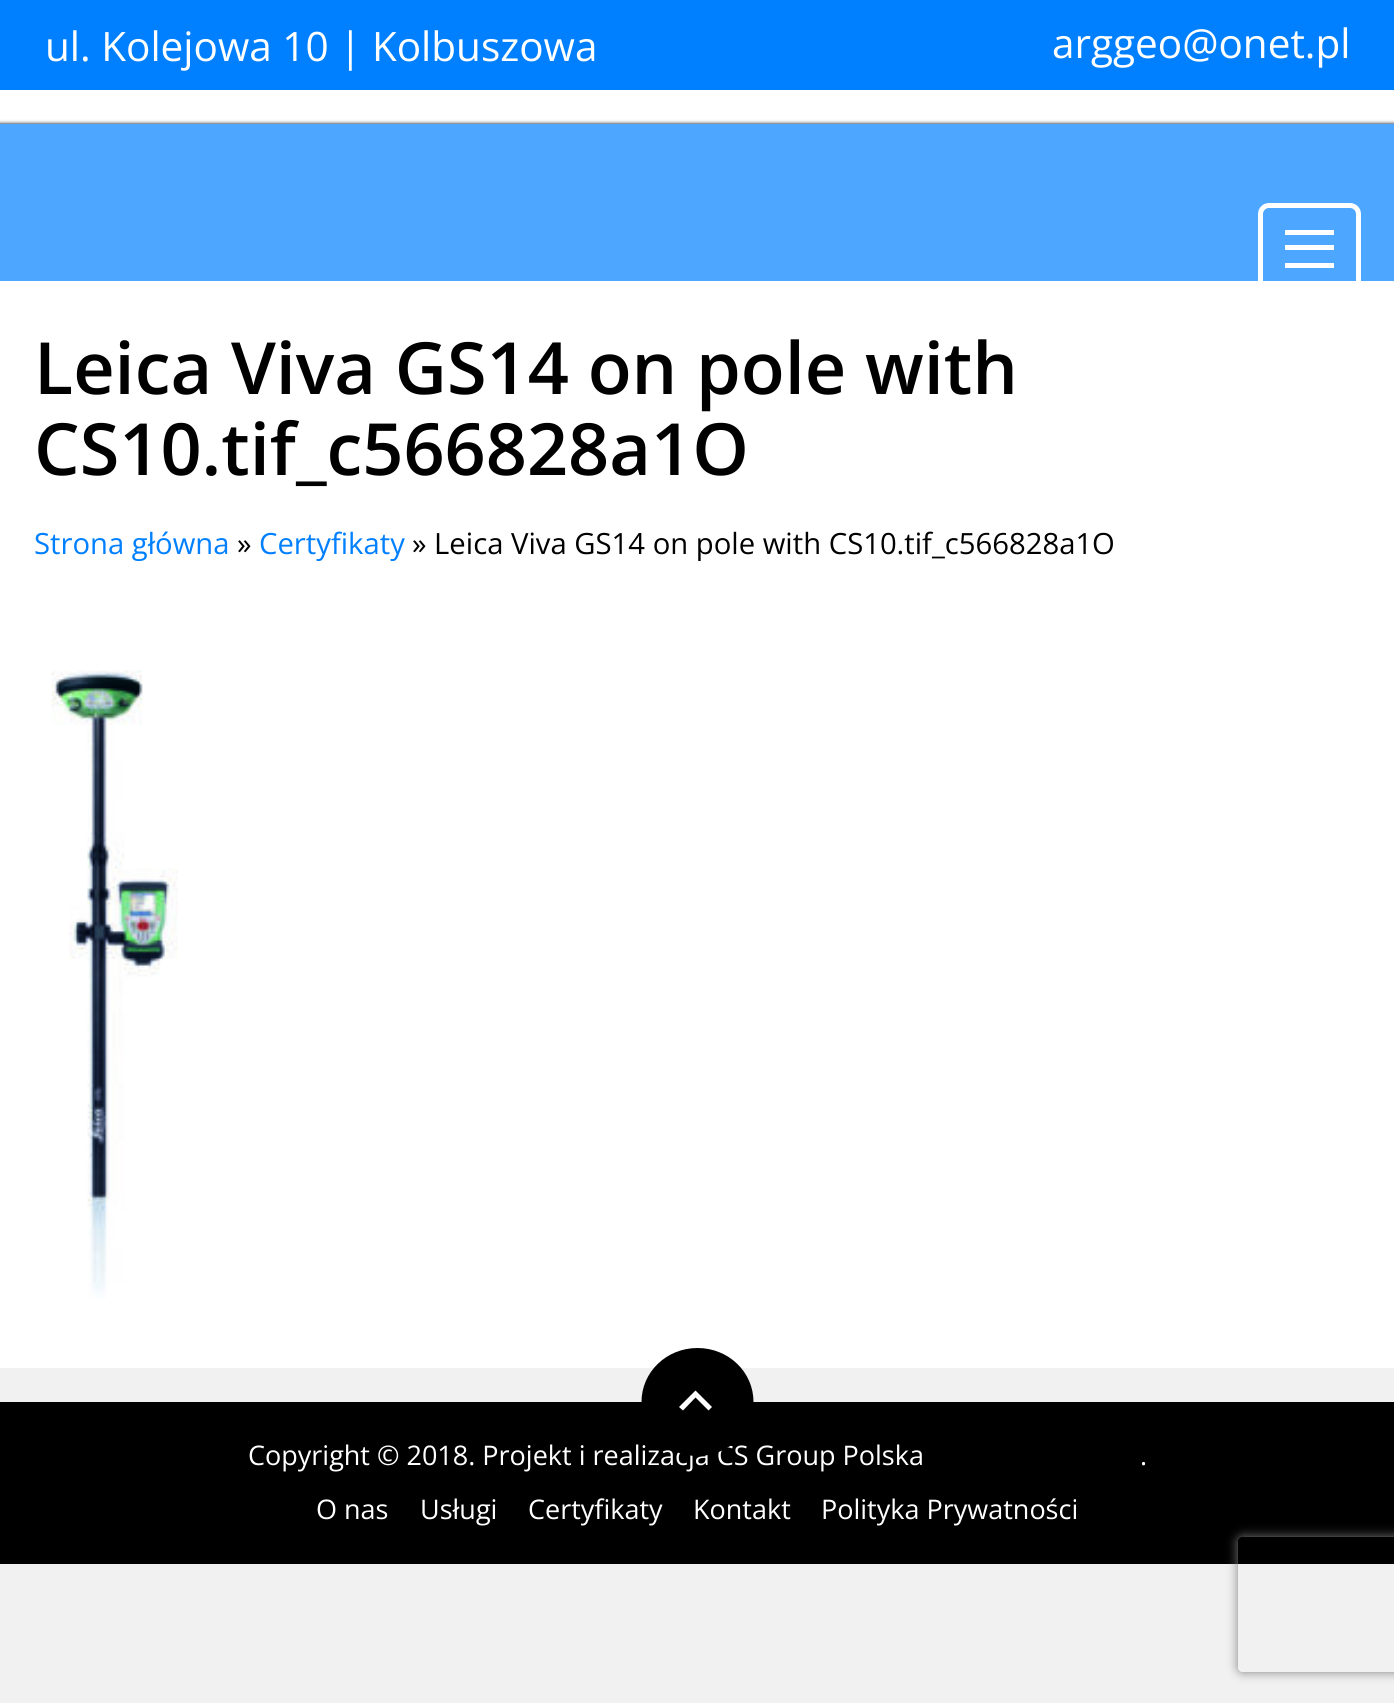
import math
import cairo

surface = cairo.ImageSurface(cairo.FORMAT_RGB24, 1394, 1703)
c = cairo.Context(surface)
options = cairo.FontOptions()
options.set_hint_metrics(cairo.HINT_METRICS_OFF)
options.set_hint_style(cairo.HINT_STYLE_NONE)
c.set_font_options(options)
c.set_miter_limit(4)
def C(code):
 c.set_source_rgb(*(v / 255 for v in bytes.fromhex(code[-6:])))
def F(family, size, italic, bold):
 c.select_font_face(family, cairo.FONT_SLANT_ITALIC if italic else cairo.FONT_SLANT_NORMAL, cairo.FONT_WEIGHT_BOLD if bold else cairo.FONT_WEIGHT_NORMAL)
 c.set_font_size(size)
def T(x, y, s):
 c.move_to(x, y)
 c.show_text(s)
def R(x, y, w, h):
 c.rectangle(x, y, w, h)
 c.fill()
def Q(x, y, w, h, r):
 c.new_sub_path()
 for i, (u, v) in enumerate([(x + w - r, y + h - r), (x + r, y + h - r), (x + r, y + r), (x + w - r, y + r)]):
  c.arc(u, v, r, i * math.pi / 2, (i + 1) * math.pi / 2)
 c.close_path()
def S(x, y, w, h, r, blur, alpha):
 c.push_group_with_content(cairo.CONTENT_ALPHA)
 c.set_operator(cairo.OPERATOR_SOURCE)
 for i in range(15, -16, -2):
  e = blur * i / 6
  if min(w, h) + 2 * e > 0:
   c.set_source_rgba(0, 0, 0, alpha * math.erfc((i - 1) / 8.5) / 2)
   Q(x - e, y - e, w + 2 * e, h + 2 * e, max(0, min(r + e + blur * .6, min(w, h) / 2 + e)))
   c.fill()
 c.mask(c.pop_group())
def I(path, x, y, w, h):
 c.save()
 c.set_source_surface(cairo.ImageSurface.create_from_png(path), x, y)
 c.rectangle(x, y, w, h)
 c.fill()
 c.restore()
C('f1f1f1')
c.paint()
C('ffffff')
R(0,90,1394,34)
C('0080ff')
R(0,0,1394,90)
F('Open Sans',40.5,0,0)
C('ffffff')
T(45,61,'ul. Kolejowa 10 | Kolbuszowa')
T(1052,58,'arggeo@onet.pl')
C('000000')
S(-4,124,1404,166,0,2,1)
C('4da6ff')
R(0,124,1394,157)
C('ffffff')
R(0,281,1394,1087)
Q(1260.5,205.5,98,87,8.5)
c.set_line_width(5)
c.stroke()
R(1285,230,49,5)
R(1285,245,49,5)
R(1285,263,49,5)
F('Open Sans SemiBold',72,0,0)
C('000000')
T(34,394,'Leica Viva GS14 on pole with')
T(34,475,'CS10.tif_c566828a1O')
F('Open Sans',29.25,0,0)
C('0080ff')
T(34,554,'Strona główna')
C('000000')
T(237,554,'»')
C('0080ff')
T(259,554,'Certyfikaty')
C('000000')
T(412,554,'» Leica Viva GS14 on pole with CS10.tif_c566828a1O')
I('1.png',51,670,127,629)
R(0,1402,1394,162)
F('Open Sans',27,0,0)
C('ffffff')
T(248,1465,'Copyright © 2018. Projekt i realizacja CS Group Polska')
C('000000')
c.new_path()
c.move_to(697.5,1348)
c.curve_to(728.5,1348,753.5,1372,753.5,1402)
c.curve_to(753.5,1432,728.5,1456,697.5,1456)
c.curve_to(666.5,1456,641.5,1432,641.5,1402)
c.curve_to(641.5,1372,666.5,1348,697.5,1348)
c.close_path()
c.fill()
C('ffffff')
c.new_path()
c.move_to(708.5,1410.5)
c.line_to(695.5,1397.5)
c.line_to(683,1410.5)
c.line_to(679,1407)
c.line_to(695.5,1390.5)
c.line_to(712,1407)
c.close_path()
c.fill()
T(1140,1465,'.')
T(316,1519,'O nas')
T(420,1519,'Usługi')
T(528,1519,'Certyfikaty')
T(693,1519,'Kontakt')
T(821,1519,'Polityka Prywatności')
c.save()
c.set_fill_rule(cairo.FILL_RULE_EVEN_ODD)
c.new_path()
c.move_to(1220,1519)
c.line_to(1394,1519)
c.line_to(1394,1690)
c.line_to(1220,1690)
c.close_path()
c.move_to(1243,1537)
c.line_to(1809,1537)
c.curve_to(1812,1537,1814,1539,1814,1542)
c.line_to(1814,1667)
c.curve_to(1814,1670,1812,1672,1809,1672)
c.line_to(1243,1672)
c.curve_to(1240,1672,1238,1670,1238,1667)
c.line_to(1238,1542)
c.curve_to(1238,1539,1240,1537,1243,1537)
c.close_path()
c.clip()
C('808080')
S(1238,1537,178,135,5,5.5,1)
c.restore()
surface.write_to_png('o.png')
